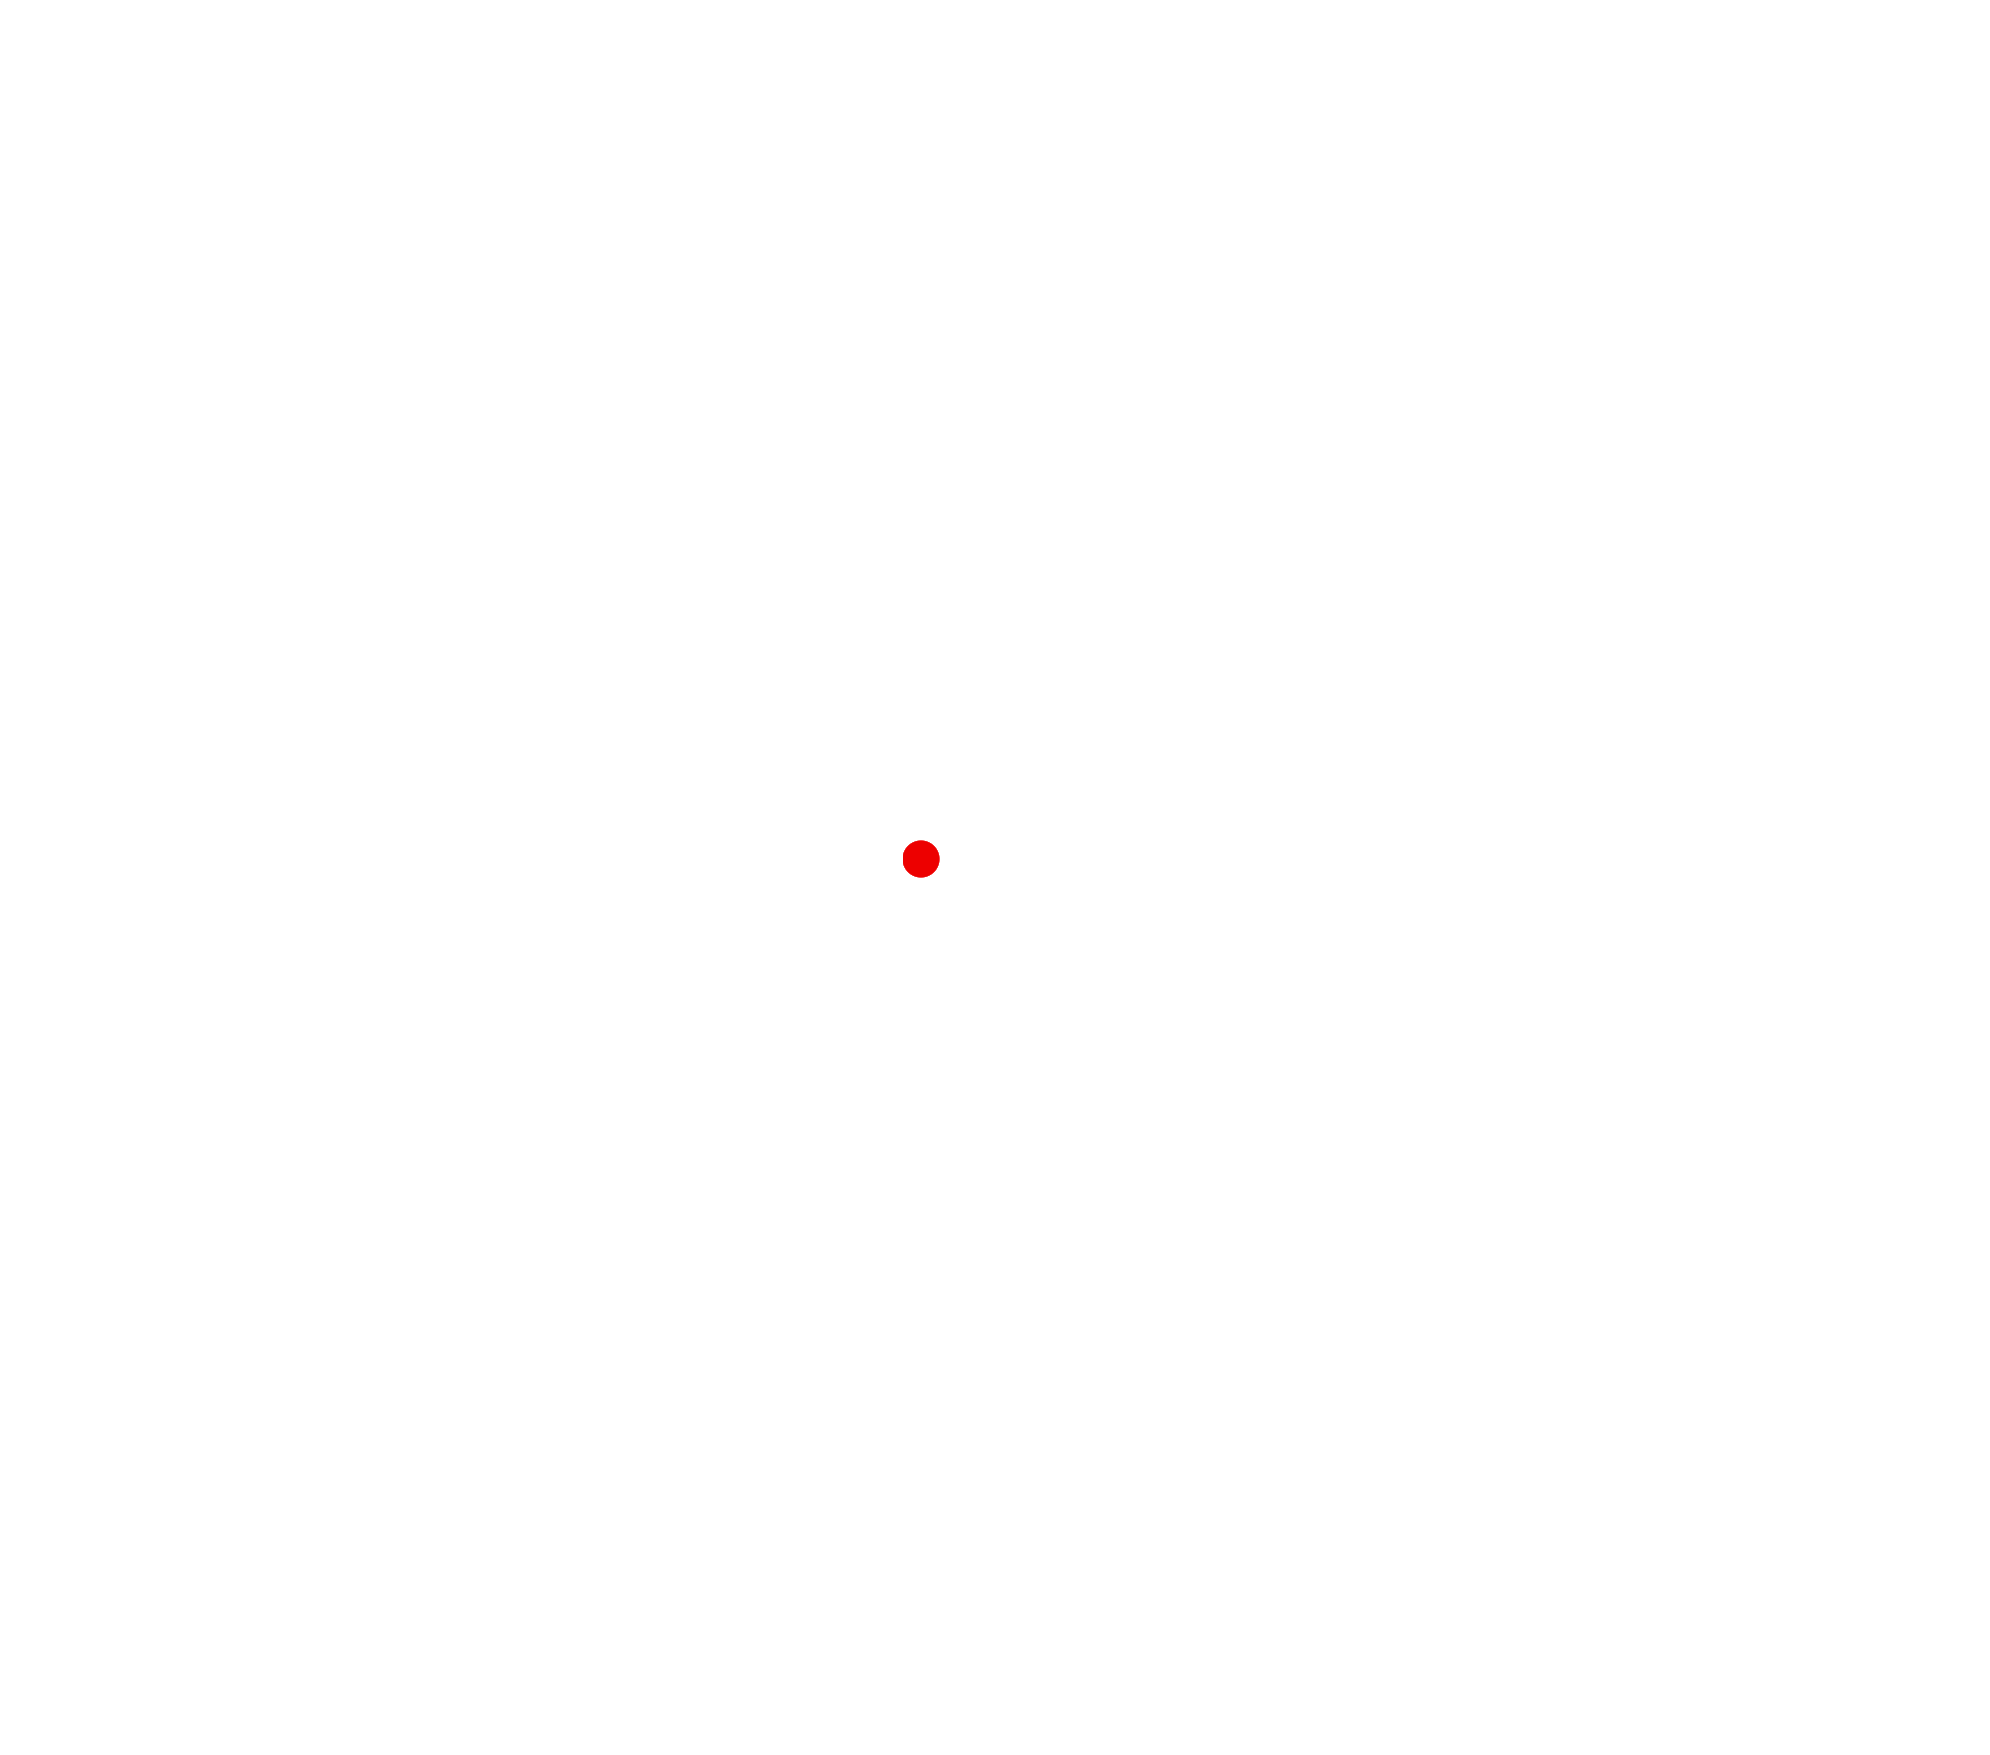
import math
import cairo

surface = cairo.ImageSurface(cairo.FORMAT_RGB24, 1990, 1755)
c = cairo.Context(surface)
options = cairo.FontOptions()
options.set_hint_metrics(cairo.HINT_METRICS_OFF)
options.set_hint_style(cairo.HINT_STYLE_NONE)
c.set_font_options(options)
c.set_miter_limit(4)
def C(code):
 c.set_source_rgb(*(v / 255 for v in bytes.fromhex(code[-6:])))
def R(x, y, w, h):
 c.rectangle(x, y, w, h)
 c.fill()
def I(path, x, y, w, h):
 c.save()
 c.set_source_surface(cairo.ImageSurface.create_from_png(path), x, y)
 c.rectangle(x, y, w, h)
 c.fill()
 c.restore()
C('ffffff')
c.paint()
I('1.png',1882,276,36,36)
gradient = cairo.RadialGradient(921,859,0,921,859,19)
gradient.add_color_stop_rgba(.9,0.929,0,0,1)
gradient.add_color_stop_rgba(1,1,1,1,1)
c.set_source(gradient)
R(903,840,37,38)
gradient = cairo.RadialGradient(921,859,0,921,859,19)
gradient.add_color_stop_rgba(.9,0.929,0,0,1)
gradient.add_color_stop_rgba(1,0.929,0,0,0)
c.set_source(gradient)
R(903,840,37,38)
R(903,840,37,38)
R(903,840,37,38)
I('2.png',50,915,35,40)
I('3.png',602,915,41,40)
surface.write_to_png('o.png')
